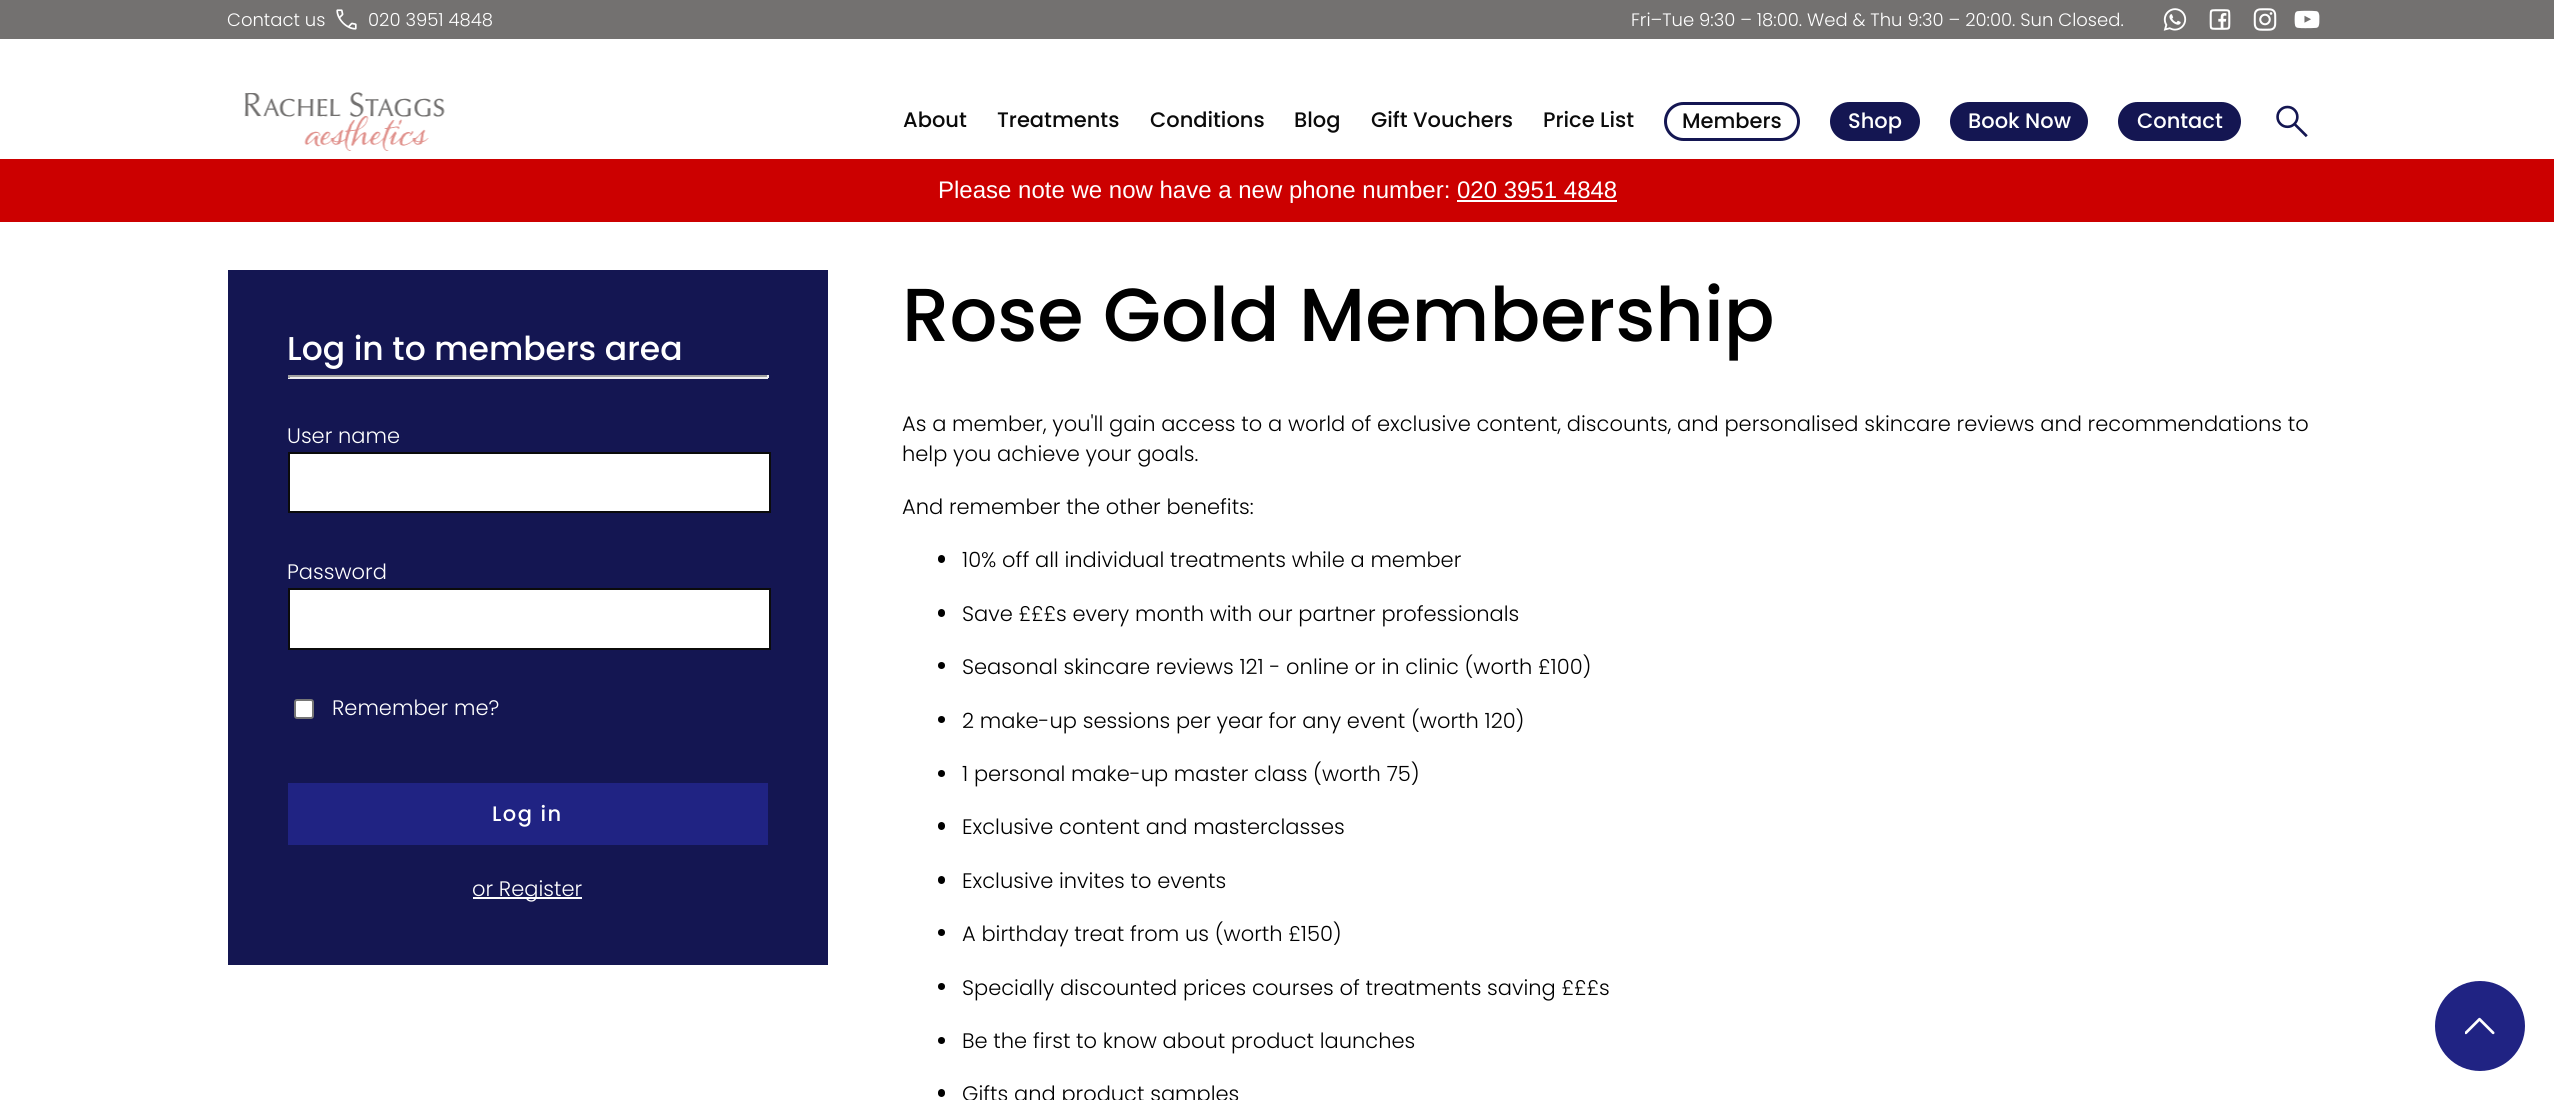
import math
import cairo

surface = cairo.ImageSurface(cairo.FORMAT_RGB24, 2554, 1100)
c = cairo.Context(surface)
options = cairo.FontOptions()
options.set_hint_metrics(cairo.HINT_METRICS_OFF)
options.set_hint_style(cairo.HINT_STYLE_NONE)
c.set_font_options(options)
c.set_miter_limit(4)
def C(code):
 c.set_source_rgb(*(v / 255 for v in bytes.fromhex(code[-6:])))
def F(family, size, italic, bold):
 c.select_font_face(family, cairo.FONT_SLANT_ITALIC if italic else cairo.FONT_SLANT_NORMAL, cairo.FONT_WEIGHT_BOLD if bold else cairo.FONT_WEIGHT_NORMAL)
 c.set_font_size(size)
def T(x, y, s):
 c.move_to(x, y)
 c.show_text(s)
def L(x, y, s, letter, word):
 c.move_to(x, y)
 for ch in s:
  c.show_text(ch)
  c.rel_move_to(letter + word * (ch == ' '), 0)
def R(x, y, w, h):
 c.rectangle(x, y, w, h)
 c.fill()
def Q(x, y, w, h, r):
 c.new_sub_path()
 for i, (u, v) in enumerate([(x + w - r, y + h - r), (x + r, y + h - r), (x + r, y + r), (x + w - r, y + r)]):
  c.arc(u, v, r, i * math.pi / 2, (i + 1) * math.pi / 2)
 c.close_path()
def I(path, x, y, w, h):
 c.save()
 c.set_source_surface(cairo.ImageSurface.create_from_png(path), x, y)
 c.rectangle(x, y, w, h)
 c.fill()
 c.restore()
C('ffffff')
c.paint()
C('737170')
R(0,0,2554,39)
F('Poppins Light',18,0,0)
C('ffffff')
T(227,26,'Contact us')
I('1.png',336,9,21,21)
T(368,26,'020 3951 4848')
T(1631,26,'Fri–Tue 9:30 – 18:00. Wed & Thu 9:30 – 20:00. Sun Closed.')
I('2.png',2163,8,24,23)
I('3.png',2209,9,22,21)
I('4.png',2253,8,24,23)
I('5.png',2294,10,26,19)
I('6.png',244,92,201,59)
F('Poppins Medium',21,0,0)
C('0b0b0b')
T(903,127,'About')
T(997,127,'Treatments')
T(1150,127,'Conditions')
T(1294,127,'Blog')
T(1371,127,'Gift Vouchers')
T(1543,127,'Price List')
Q(1665.5,103.5,133,36,18)
C('141652')
c.set_line_width(3)
c.stroke()
C('0b0b0b')
T(1682,128,'Members')
C('141652')
Q(1831.5,103.5,87,36,18)
c.fill_preserve()
c.stroke()
C('ffffff')
T(1848,128,'Shop')
C('141652')
Q(1951.5,103.5,135,36,18)
c.fill_preserve()
c.stroke()
C('ffffff')
T(1968,128,'Book Now')
C('141652')
Q(2119.5,103.5,120,36,18)
c.fill_preserve()
c.stroke()
C('ffffff')
T(2137,128,'Contact')
I('7.png',2276,105,32,33)
C('cc0000')
R(0,159,2554,63)
F('Liberation Sans',24,0,0)
C('ffffff')
T(938,198,'Please note we now have a new phone number: 020 3951 4848')
R(1457,200,160,2)
C('141652')
R(228,270,600,695)
F('Poppins Medium',33,0,0)
C('ffffff')
T(287,360,'Log in to members area')
C('9f9f9f')
R(288,375,480,2)
C('eeeeee')
R(767,375,2,3)
R(288,377,480,2)
C('9f9f9f')
R(288,375,2,3)
F('Poppins Light',21,0,0)
C('ffffff')
T(287,443,'User name')
c.rectangle(289,453,481,59)
c.fill_preserve()
C('0b0b0b')
c.set_line_width(2)
c.stroke()
C('ffffff')
T(287,579,'Password')
c.rectangle(289,589,481,60)
c.fill_preserve()
C('0b0b0b')
c.stroke()
C('ffffff')
Q(295,700,18,18,2)
c.fill_preserve()
C('767676')
c.stroke()
C('ffffff')
T(332,715,'Remember me?')
C('202383')
R(288,783,480,62)
F('Poppins Medium',21,0,0)
C('ffffff')
L(492,821,'Log in',1.5,0)
R(473,897,109,2)
F('Poppins Light',21,0,0)
T(472,896,'or Register')
F('Poppins Medium',75,0,0)
C('000000')
T(902,341,'Rose Gold Membership')
F('Poppins Light',21,0,0)
T(902,431,'As a member, you\'ll gain access to a world of exclusive content, discounts, and personalised skincare reviews and recommendations to')
T(902,461,'help you achieve your goals.')
T(902,514,'And remember the other benefits:')
Q(938,555,7,8,3.5)
c.fill()
T(962,567,'10% off all individual treatments while a member')
Q(938,609,7,8,3.5)
c.fill()
T(962,621,'Save £££s every month with our partner professionals')
c.new_path()
c.arc(941.5,665.5,3.5,0,2 * math.pi)
c.fill()
T(962,674,'Seasonal skincare reviews 121 - online or in clinic (worth £100)')
c.new_path()
c.arc(941.5,719.5,3.5,0,2 * math.pi)
c.fill()
T(962,728,'2 make-up sessions per year for any event (worth 120)')
c.new_path()
c.arc(941.5,773.5,3.5,0,2 * math.pi)
c.fill()
T(962,781,'1 personal make-up master class (worth 75)')
Q(938,822,7,8,3.5)
c.fill()
T(962,834,'Exclusive content and masterclasses')
Q(938,876,7,8,3.5)
c.fill()
T(962,888,'Exclusive invites to events')
c.new_path()
c.arc(941.5,932.5,3.5,0,2 * math.pi)
c.fill()
T(962,941,'A birthday treat from us (worth £150)')
c.new_path()
c.arc(941.5,986.5,3.5,0,2 * math.pi)
c.fill()
T(962,995,'Specially discounted prices courses of treatments saving £££s')
c.new_path()
c.arc(941.5,1040.5,3.5,0,2 * math.pi)
c.fill()
T(962,1048,'Be the first to know about product launches')
Q(938,1089,7,8,3.5)
c.fill()
T(962,1101,'Gifts and product samples')
C('202383')
c.new_path()
c.arc(2480,1026,45,0,2 * math.pi)
c.fill()
I('8.png',2465,1017,30,18)
surface.write_to_png('o.png')
